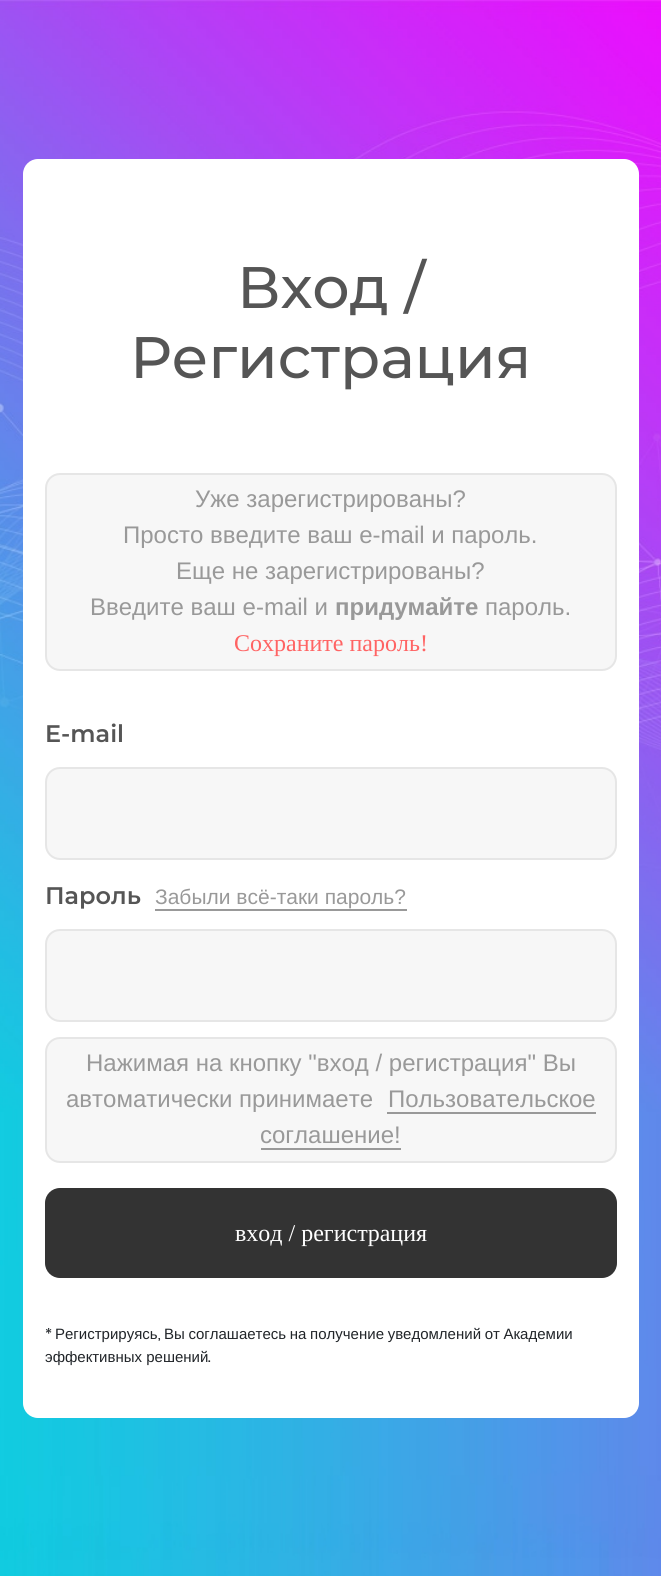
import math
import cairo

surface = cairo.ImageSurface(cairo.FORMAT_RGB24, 661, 1576)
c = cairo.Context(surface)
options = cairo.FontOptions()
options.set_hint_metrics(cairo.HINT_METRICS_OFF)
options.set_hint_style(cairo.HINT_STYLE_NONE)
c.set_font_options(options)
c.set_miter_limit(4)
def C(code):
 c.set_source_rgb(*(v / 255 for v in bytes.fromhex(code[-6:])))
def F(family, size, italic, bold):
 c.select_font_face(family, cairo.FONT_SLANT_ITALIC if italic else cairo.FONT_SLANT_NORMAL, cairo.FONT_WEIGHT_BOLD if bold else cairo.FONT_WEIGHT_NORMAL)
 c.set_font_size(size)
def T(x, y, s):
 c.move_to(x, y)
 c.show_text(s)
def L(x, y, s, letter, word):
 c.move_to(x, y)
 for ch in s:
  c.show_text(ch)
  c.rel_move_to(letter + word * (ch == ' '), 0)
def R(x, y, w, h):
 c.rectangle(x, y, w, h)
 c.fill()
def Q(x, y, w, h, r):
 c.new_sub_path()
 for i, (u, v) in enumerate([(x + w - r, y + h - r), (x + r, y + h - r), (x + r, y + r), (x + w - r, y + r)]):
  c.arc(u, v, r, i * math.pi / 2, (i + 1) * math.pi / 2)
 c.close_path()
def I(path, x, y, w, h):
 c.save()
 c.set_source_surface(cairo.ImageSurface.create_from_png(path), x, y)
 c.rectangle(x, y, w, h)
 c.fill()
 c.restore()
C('ffffff')
c.paint()
I('1.png',0,0,661,1576)
C('ffffff')
Q(23,159,616,1259,15)
c.fill()
F('Montserrat Medium',58.5,0,0)
C('555555')
T(237,308,'Вход /')
T(130,378,'Регистрация')
C('f7f7f7')
Q(46,474,570,196,14)
c.fill_preserve()
C('e6e6e6')
c.stroke()
F('Liberation Sans',24,0,0)
C('999999')
T(195,507,'Уже зарегистрированы?')
T(123,543,'Просто введите ваш e-mail и пароль.')
T(176,579,'Еще не зарегистрированы?')
T(90,615,'Введите ваш e-mail и')
F('Liberation Sans',24,0,1)
T(335,615,'придумайте')
F('Liberation Sans',24,0,0)
T(485,615,'пароль.')
F('Liberation Serif',24,0,0)
C('ff6464')
T(234,651,'Сохраните пароль!')
F('Montserrat SemiBold',24,0,0)
C('555555')
T(45,742,'E-mail')
C('f7f7f7')
Q(46,768,570,91,14)
c.fill_preserve()
C('e6e6e6')
c.stroke()
C('555555')
T(45,904,'Пароль')
F('Liberation Sans',21,0,0)
C('999999')
T(155,904,'Забыли всё-таки пароль?')
R(155,909,252,2)
C('f7f7f7')
Q(46,930,570,91,14)
c.fill_preserve()
C('e6e6e6')
c.stroke()
C('f7f7f7')
Q(46,1038,570,124,14)
c.fill_preserve()
C('e6e6e6')
c.stroke()
F('Liberation Sans',24,0,0)
C('999999')
T(86,1071,'Нажимая на кнопку "вход / регистрация" Вы')
T(66,1107,'автоматически принимаете')
T(388,1107,'Пользовательское')
R(387,1112,209,2)
T(260,1143,'соглашение!')
R(261,1148,140,2)
C('333333')
Q(45,1188,572,90,15)
c.fill()
F('Liberation Serif',24,0,0)
C('ffffff')
T(235,1241,'вход / регистрация')
F('Poppins',15,0,0)
C('212529')
T(45,1339,'*')
F('Liberation Sans',15,0,0)
T(55,1339,'Регистрируясь')
F('Poppins',15,0,0)
T(158,1339,',')
F('Liberation Sans',15,0,0)
L(164,1339,'Вы соглашаетесь на получение уведомлений от Академии',0,-.5)
T(45,1362,'эффективных решений')
F('Poppins',15,0,0)
T(208,1362,'.')
surface.write_to_png('o.png')
